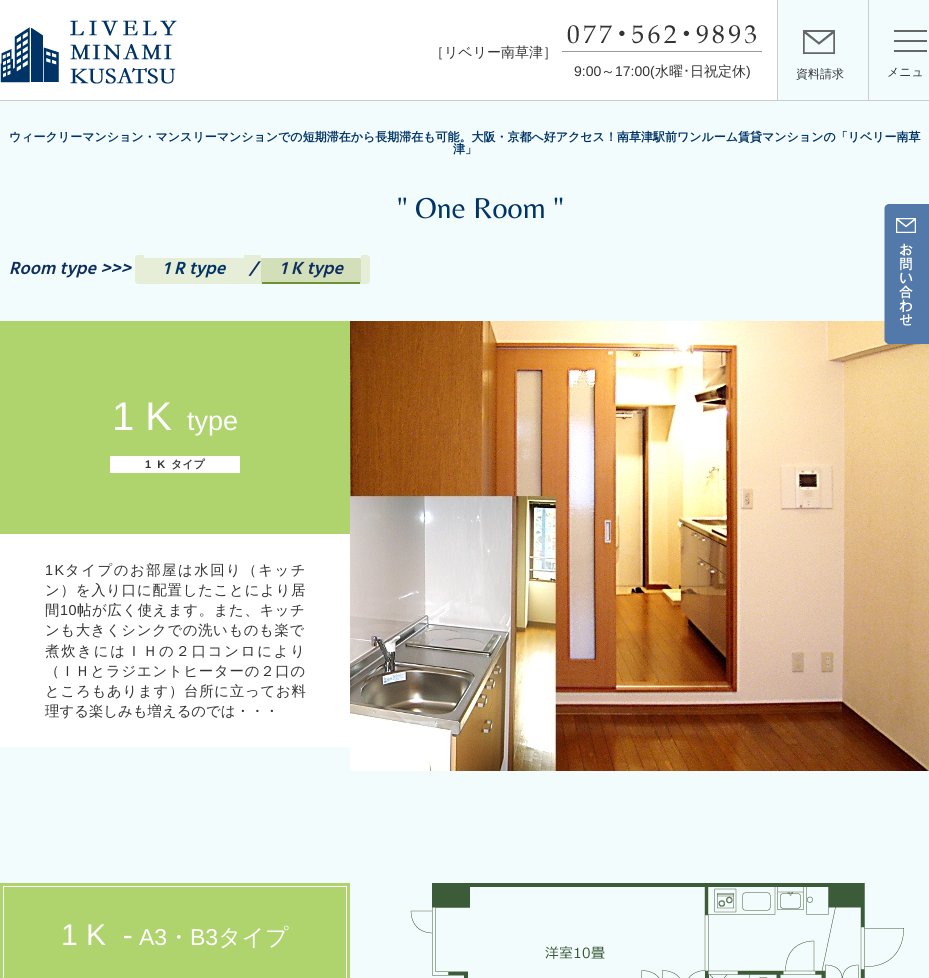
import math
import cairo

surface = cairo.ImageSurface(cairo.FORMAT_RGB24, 929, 978)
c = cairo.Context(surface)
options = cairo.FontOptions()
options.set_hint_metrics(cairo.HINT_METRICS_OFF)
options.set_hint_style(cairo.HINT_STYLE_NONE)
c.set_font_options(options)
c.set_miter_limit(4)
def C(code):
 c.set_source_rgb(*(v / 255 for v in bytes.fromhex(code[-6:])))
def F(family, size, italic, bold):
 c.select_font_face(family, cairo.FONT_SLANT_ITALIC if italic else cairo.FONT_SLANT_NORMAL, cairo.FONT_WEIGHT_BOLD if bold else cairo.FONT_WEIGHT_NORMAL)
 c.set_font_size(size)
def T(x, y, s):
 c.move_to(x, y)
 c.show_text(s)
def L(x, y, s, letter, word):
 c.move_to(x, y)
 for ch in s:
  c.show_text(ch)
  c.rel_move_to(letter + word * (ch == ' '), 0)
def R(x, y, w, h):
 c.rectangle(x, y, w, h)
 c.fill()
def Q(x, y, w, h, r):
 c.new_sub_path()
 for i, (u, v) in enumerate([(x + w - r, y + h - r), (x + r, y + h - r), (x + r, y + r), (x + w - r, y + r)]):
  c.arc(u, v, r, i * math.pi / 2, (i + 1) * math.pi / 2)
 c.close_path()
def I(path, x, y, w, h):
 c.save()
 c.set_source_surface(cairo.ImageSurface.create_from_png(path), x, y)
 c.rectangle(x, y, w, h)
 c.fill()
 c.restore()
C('ffffff')
c.paint()
C('cccccc')
R(0,100,929,1)
I('1.png',0,20,177,64)
F('WenQuanYi Zen Hei Medium',14,0,0)
C('333333')
T(430,57,'［リベリー南草津］')
I('2.png',562,25,200,27)
F('Liberation Sans',14,0,0)
T(574,76,'9:00')
F('WenQuanYi Zen Hei Medium',14,0,0)
T(601,76,'～')
F('Liberation Sans',14,0,0)
T(615,76,'17:00(')
F('WenQuanYi Zen Hei Medium',14,0,0)
T(655,76,'水曜')
F('IPAPGothic',14,0,0)
T(683,76,'･')
F('WenQuanYi Zen Hei Medium',14,0,0)
T(690,76,'日祝定休')
F('Liberation Sans',14,0,0)
T(746,76,')')
C('cccccc')
R(868,0,1,100)
R(777,0,1,100)
C('f2fcfd')
R(778,0,90,100)
I('3.png',803,30,32,24)
F('WenQuanYi Zen Hei Medium',12,0,0)
C('333333')
T(796,78,'資料請求')
C('f2fcfd')
R(869,0,60,100)
I('4.png',894,30,33,22)
C('333333')
T(887,76,'メニュ')
C('f2fcfd')
R(0,101,929,877)
F('WenQuanYi Zen Hei',12,0,1)
C('003366')
T(9,141,'ウィークリーマンション・マンスリーマンションでの短期滞在から長期滞在も可能。大阪・京都へ好アクセス！南草津駅前ワンルーム賃貸マンションの「リベリー南草')
T(453,153,'津」')
F('Belleza',30,0,0)
T(397,218,'" One Room "')
F('Hind SemiBold',18,1,0)
C('0f2e60')
T(9,274,'Room type >>>')
C('e7eed7')
c.new_path()
c.move_to(138,255)
c.line_to(144,255)
c.line_to(144,284)
c.line_to(138,284)
c.curve_to(136.5,284,135,282.5,135,281)
c.line_to(135,258)
c.curve_to(135,256.5,136.5,255,138,255)
c.close_path()
c.fill()
R(144,258,100,26)
R(244,255,17,29)
R(261,258,100,26)
c.new_path()
c.move_to(361,255)
c.line_to(367,255)
c.curve_to(368.5,255,370,256.5,370,258)
c.line_to(370,281)
c.curve_to(370,282.5,368.5,284,367,284)
c.line_to(361,284)
c.close_path()
c.fill()
C('003366')
T(163,274,'1 R type')
C('0f2e60')
T(249,274,'/')
C('d2dfb8')
Q(261,258,100,26,2)
c.fill()
C('719135')
R(262,282,98,2)
C('0f2e60')
T(280,274,'1 K type')
C('ffffff')
R(0,534,350,213)
C('afd36d')
R(0,321,350,213)
F('Liberation Sans',40,0,0)
C('ffffff')
T(112,430,'1 K')
F('Liberation Sans',27,0,0)
T(187,430,'type')
R(110,456,130,17)
F('Liberation Sans',11,0,1)
C('333333')
T(145,468,'1  K')
F('WenQuanYi Zen Hei',11,0,1)
T(171,468,'タイプ')
F('Liberation Sans',14.4,0,0)
L(45,575,'1K',1.5,0)
F('WenQuanYi Zen Hei Medium',14.4,0,0)
L(65,575,'タイプのお部屋は水回り（キッチ',1.5,0)
L(45,595,'ン）を入り口に配置したことにより居',.75,0)
L(45,615,'間',.6,0)
F('Liberation Sans',14.4,0,0)
L(60,615,'10',.6,0)
F('WenQuanYi Zen Hei Medium',14.4,0,0)
L(77,615,'帖が広く使えます。また、キッチ',.6,0)
L(45,635,'ンも大きくシンクでの洗いものも楽で',.6,0)
L(45,656,'煮炊きにはＩＨの２口コンロにより',1.75,0)
L(45,676,'（ＩＨとラジエントヒーターの２口の',.75,0)
L(45,696,'ところもあります）台所に立ってお料',.75,0)
T(45,716,'理する楽しみも増えるのでは・・・')
I('5.png',350,321,579,450)
C('afd36d')
c.rectangle(2,885,346,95)
c.fill_preserve()
C('ffffff')
c.set_line_width(4)
c.stroke()
c.rectangle(1.5,884.5,347,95)
C('afd36d')
c.set_line_width(3)
c.stroke()
F('Liberation Sans',30,0,0)
C('ffffff')
T(61,945,'1 K  -')
F('Liberation Sans',23,0,0)
T(139,945,'A3')
F('WenQuanYi Zen Hei Medium',23,0,0)
T(167,945,'・')
F('Liberation Sans',23,0,0)
T(190,945,'B3')
F('WenQuanYi Zen Hei Medium',23,0,0)
T(218,945,'タイプ')
I('6.png',410,883,494,95)
I('7.png',884,204,45,140)
surface.write_to_png('o.png')
